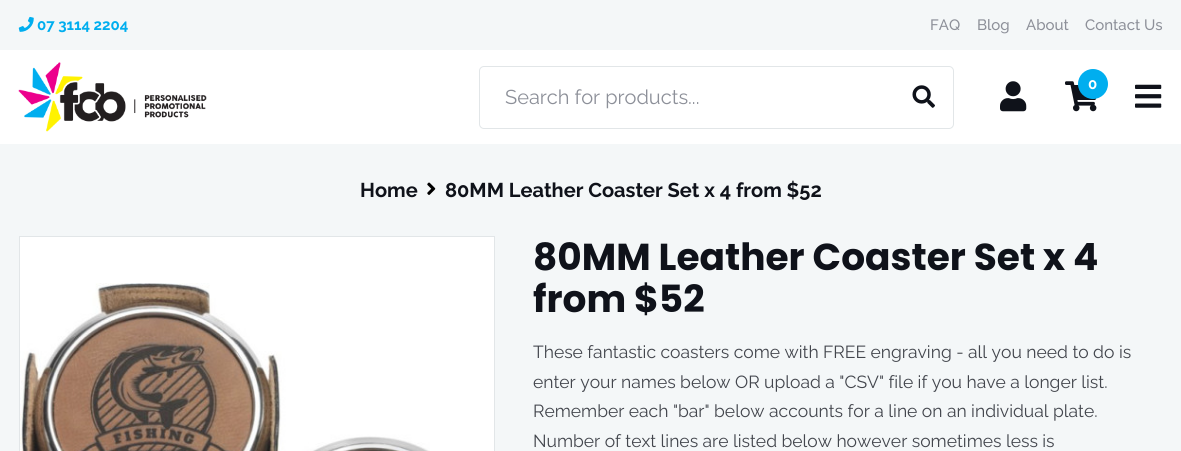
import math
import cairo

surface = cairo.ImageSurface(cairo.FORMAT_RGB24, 1181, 451)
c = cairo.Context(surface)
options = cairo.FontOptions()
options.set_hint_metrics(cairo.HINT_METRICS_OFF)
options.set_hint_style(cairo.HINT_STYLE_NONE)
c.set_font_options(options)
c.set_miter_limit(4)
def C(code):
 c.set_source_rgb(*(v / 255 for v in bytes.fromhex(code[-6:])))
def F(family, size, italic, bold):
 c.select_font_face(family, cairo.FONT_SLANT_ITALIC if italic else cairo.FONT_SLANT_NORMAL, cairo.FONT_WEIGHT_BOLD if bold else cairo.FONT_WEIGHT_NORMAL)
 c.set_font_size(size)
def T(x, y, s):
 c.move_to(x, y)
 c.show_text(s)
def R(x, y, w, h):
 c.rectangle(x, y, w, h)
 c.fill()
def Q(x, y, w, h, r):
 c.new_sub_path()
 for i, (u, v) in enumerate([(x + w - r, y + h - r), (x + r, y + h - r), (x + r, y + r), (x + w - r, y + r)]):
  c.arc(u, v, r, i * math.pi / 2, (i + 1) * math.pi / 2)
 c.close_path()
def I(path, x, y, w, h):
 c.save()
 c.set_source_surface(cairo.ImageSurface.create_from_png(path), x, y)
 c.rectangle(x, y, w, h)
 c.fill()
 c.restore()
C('ffffff')
c.paint()
C('f4f7f8')
R(0,0,1181,50)
I('1.png',18,16,16,16)
F('Raleway',15,0,1)
C('00aeef')
T(37,30,'07 3114 2204')
F('Raleway Medium',15,0,0)
C('8d9099')
T(930,30,'FAQ')
T(977,30,'Blog')
T(1026,30,'About')
T(1085,30,'Contact Us')
I('2.png',18,62,189,70)
I('3.png',1000,81,27,31)
I('4.png',1065,81,32,31)
C('00aeef')
c.arc(1093,84,15,0,2 * math.pi)
c.fill()
F('Raleway',15,0,1)
C('ffffff')
T(1088,89,'0')
I('5.png',1135,84,27,24)
Q(479.5,66.5,474,62,4.5)
C('e2e6e8')
c.set_line_width(1)
c.stroke()
F('Raleway',20,0,0)
C('8d9099')
T(505,104,'Search for products...')
I('6.png',912,85,23,23)
C('f4f7f8')
R(0,144,1181,307)
F('Raleway',20,0,1)
C('0f121a')
T(360,197,'Home')
I('7.png',427,182,9,13)
T(445,197,'80MM Leather Coaster Set x 4 from $52')
C('ffffff')
c.rectangle(19.5,236.5,475,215)
c.fill_preserve()
C('e2e6e8')
c.stroke()
I('8.png',20,283,410,168)
F('Poppins',37.5,0,1)
C('0f121a')
T(533,270,'80MM Leather Coaster Set x 4')
T(533,312,'from $52')
F('Raleway',17.5,0,0)
C('43464d')
T(533,358,'These fantastic coasters come with FREE engraving - all you need to do is')
T(533,388,'enter your names below OR upload a "CSV" file if you have a longer list.')
T(533,417,'Remember each "bar" below accounts for a line on an individual plate.')
T(533,447,'Number of text lines are listed below however sometimes less is')
surface.write_to_png('o.png')
